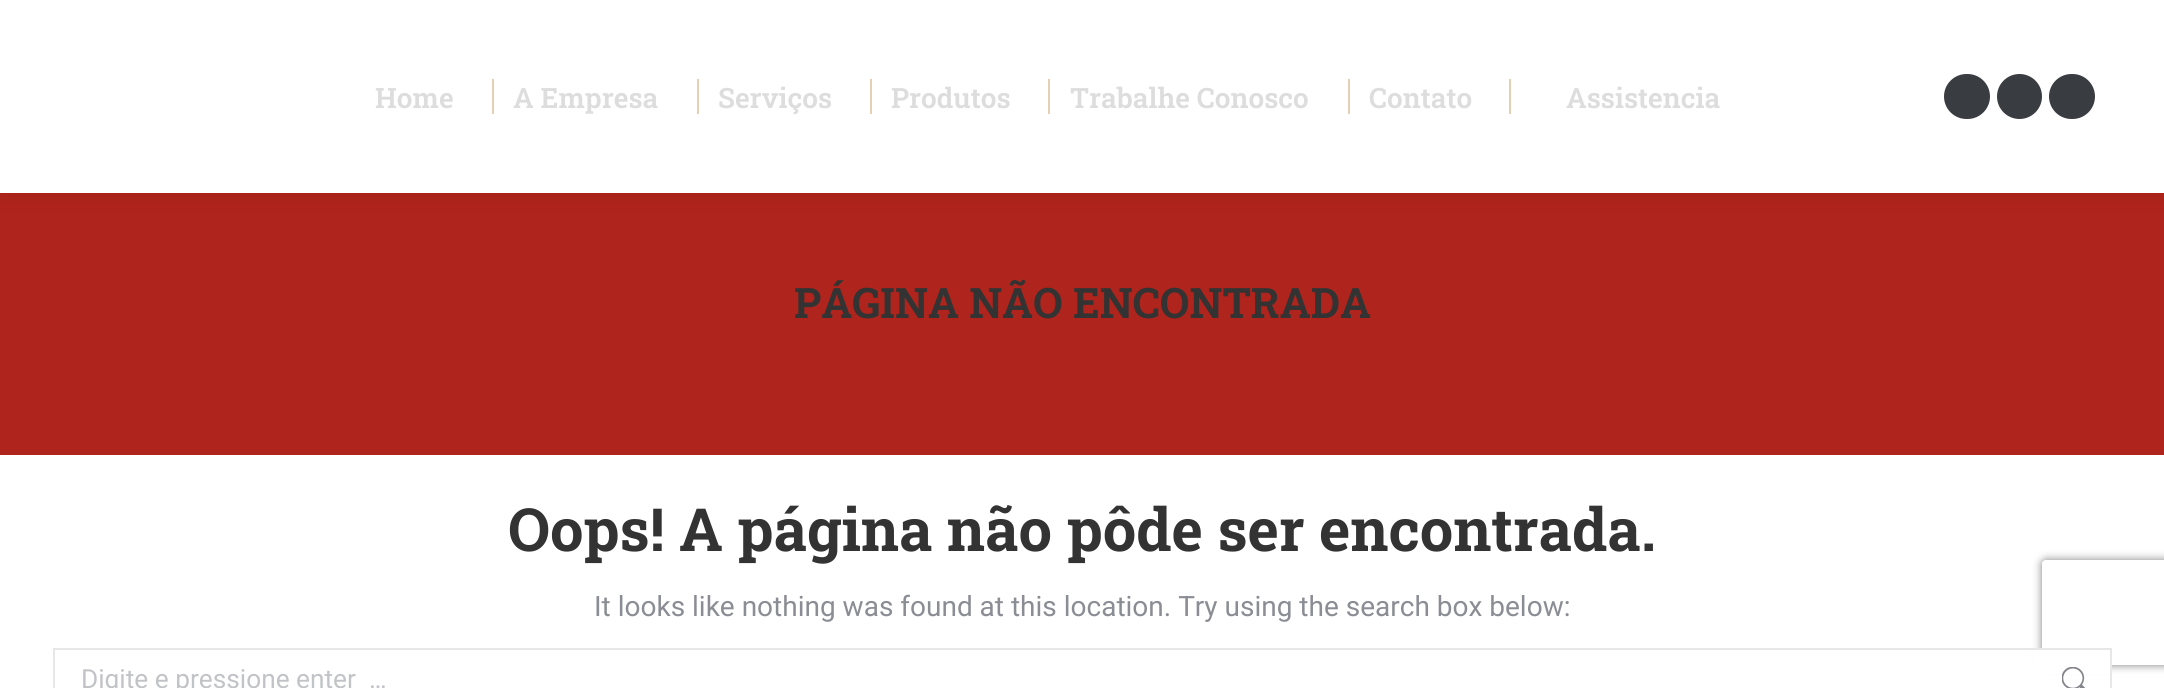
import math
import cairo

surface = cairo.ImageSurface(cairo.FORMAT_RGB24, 2164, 688)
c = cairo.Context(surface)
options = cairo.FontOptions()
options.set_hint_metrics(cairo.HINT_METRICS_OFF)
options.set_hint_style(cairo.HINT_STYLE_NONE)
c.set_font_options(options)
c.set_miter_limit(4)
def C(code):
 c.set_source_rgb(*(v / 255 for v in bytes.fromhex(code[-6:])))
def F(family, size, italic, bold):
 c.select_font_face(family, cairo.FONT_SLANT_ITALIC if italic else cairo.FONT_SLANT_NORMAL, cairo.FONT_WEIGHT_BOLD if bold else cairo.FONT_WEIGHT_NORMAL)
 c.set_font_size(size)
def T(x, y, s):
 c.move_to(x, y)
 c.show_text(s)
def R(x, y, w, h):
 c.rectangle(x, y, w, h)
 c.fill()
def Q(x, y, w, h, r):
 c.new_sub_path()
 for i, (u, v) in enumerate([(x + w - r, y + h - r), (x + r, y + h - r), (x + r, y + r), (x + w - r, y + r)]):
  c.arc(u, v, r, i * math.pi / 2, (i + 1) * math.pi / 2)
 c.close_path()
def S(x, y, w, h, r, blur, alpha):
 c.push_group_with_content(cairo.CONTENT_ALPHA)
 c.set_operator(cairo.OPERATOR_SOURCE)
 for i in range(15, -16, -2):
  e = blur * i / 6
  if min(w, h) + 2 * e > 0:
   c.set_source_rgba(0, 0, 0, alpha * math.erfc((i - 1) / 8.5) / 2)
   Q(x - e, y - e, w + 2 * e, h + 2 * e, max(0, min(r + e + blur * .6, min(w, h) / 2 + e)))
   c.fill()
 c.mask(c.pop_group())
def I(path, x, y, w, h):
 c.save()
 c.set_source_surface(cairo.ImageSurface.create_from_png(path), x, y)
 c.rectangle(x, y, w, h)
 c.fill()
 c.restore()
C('ffffff')
c.paint()
C('af241c')
R(0,193,2164,262)
C('000000')
S(-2,-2,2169,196,0,13,.07)
C('ffffff')
R(0,0,2164,193)
F('Roboto Slab SemiBold',28,0,0)
C('dddddd')
T(375,108,'Home')
C('e5d0b5')
R(492,79,2,35)
C('dddddd')
T(513,108,'A Empresa')
C('e5d0b5')
R(697,79,2,35)
C('dddddd')
T(718,108,'Serviços')
C('e5d0b5')
R(870,79,2,35)
C('dddddd')
T(891,108,'Produtos')
C('e5d0b5')
R(1048,79,2,35)
C('dddddd')
T(1070,108,'Trabalhe Conosco')
C('e5d0b5')
R(1348,79,2,35)
C('dddddd')
T(1369,108,'Contato')
C('e5d0b5')
R(1509,79,2,35)
C('dddddd')
T(1566,108,'Assistencia')
C('393c41')
Q(1944,74,46,45,22.5)
c.fill()
c.arc(2019.5,96.5,22.5,0,2 * math.pi)
c.fill()
Q(2049,74,46,45,22.5)
c.fill()
F('Roboto Slab',42,0,1)
C('333333')
T(794,318,'PÁGINA NÃO ENCONTRADA')
F('Roboto Slab',59.5,0,1)
T(508,551,'Oops! A página não pôde ser encontrada.')
F('Roboto',28,0,0)
C('8b8d94')
T(594,616,'It looks like nothing was found at this location. Try using the search box below:')
c.save()
c.set_fill_rule(cairo.FILL_RULE_EVEN_ODD)
c.new_path()
c.move_to(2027,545)
c.line_to(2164,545)
c.line_to(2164,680)
c.line_to(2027,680)
c.close_path()
c.move_to(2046,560)
c.line_to(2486,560)
c.curve_to(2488,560,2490,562,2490,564)
c.line_to(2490,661)
c.curve_to(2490,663,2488,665,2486,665)
c.line_to(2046,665)
c.curve_to(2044,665,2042,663,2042,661)
c.line_to(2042,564)
c.curve_to(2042,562,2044,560,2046,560)
c.close_path()
c.clip()
C('808080')
S(2042,560,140,105,4,4.5,1)
c.restore()
C('ffffff')
R(2033,650,77,24)
c.rectangle(54,649,2057,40)
C('e7e7e7')
c.stroke()
F('Roboto',26.25,0,0)
C('c2c3c6')
T(81,688,'Digite e pressione enter  …')
I('1.png',2062,667,24,21)
surface.write_to_png('o.png')
